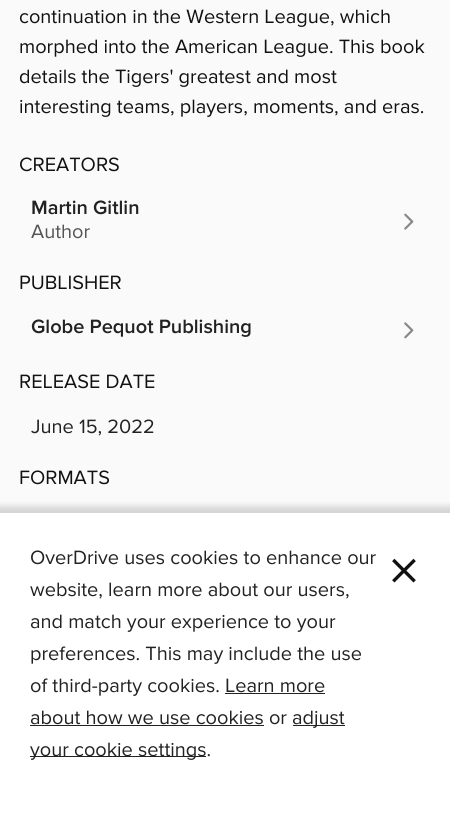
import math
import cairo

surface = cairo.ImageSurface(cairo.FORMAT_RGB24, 450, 821)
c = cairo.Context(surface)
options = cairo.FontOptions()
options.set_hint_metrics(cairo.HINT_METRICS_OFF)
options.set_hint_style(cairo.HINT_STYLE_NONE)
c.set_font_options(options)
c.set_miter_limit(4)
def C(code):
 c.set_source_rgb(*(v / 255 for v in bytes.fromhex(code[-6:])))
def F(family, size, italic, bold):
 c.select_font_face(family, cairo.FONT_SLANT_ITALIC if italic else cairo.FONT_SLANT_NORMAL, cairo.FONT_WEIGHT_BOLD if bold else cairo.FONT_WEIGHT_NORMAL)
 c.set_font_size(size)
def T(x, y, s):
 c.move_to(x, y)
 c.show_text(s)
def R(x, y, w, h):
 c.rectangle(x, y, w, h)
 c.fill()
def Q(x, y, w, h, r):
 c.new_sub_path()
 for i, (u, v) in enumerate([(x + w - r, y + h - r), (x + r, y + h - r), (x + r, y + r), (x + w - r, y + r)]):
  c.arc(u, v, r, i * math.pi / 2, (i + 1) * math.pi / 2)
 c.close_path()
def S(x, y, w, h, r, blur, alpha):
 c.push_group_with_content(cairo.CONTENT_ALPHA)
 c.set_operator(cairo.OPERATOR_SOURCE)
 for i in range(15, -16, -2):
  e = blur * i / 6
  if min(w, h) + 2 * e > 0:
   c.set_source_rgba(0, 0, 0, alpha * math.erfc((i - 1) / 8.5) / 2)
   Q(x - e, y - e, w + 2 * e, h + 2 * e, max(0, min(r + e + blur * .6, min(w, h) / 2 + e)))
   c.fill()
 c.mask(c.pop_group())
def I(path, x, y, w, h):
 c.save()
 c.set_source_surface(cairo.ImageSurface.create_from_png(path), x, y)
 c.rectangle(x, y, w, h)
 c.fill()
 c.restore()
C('fafafa')
c.paint()
F('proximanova',20,0,0)
C('111111')
T(19,23,'continuation in the Western League, which')
T(19,53,'morphed into the American League. This book')
T(19,83,'details the Tigers\' greatest and most')
T(19,113,'interesting teams, players, moments, and eras.')
T(19,171,'CREATORS')
F('Proxima Nova SemiBold',20,0,0)
C('222222')
T(31,214,'Martin Gitlin')
F('proximanova',20,0,0)
C('555555')
T(31,238,'Author')
I('1.png',404,213,10,17)
C('111111')
T(19,289,'PUBLISHER')
F('Proxima Nova SemiBold',20,0,0)
C('222222')
T(31,333,'Globe Pequot Publishing')
I('2.png',404,322,10,17)
F('proximanova',20,0,0)
C('111111')
T(19,388,'RELEASE DATE')
C('222222')
T(31,433,'June 15, 2022')
C('111111')
T(19,484,'FORMATS')
C('000000')
S(-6,506,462,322,0,3,.15)
C('ffffff')
R(0,513,450,308)
C('222222')
T(30,564,'OverDrive uses cookies to enhance our')
T(30,596,'website, learn more about our users,')
T(30,628,'and match your experience to your')
T(30,660,'preferences. This may include the use')
T(30,692,'of third-party cookies. Learn more')
R(225,693,100,1)
T(30,724,'about how we use cookies or')
R(30,725,234,1)
R(293,725,52,1)
T(292,724,'adjust')
R(30,756,176,1)
T(30,756,'your cookie settings.')
F('proximanova',64,0,0)
C('111111')
T(388,592,'×')
surface.write_to_png('o.png')
